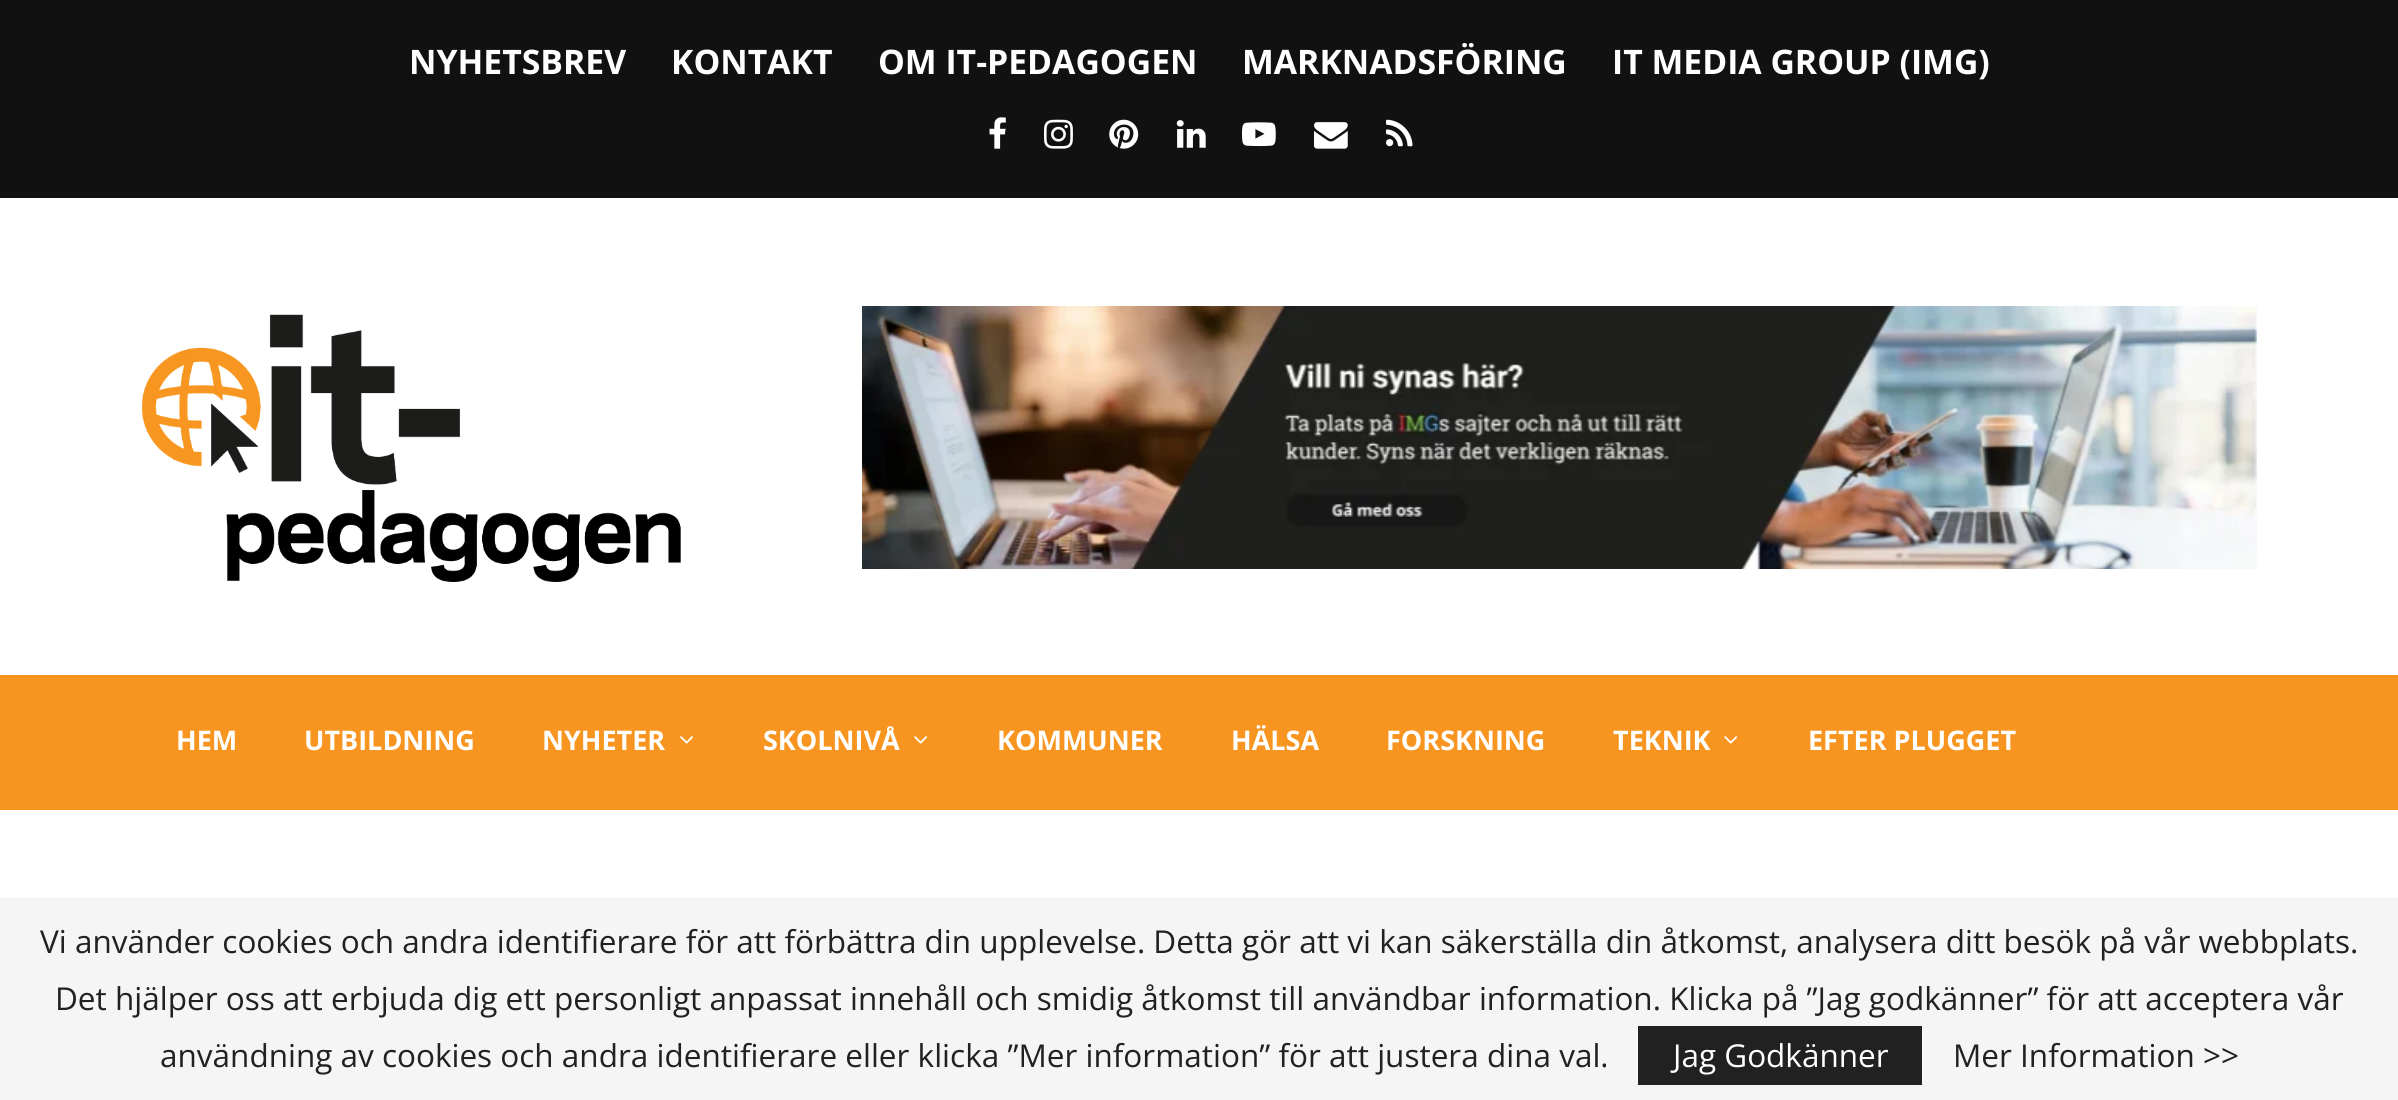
import math
import cairo

surface = cairo.ImageSurface(cairo.FORMAT_RGB24, 2398, 1100)
c = cairo.Context(surface)
options = cairo.FontOptions()
options.set_hint_metrics(cairo.HINT_METRICS_OFF)
options.set_hint_style(cairo.HINT_STYLE_NONE)
c.set_font_options(options)
c.set_miter_limit(4)
def C(code):
 c.set_source_rgb(*(v / 255 for v in bytes.fromhex(code[-6:])))
def F(family, size, italic, bold):
 c.select_font_face(family, cairo.FONT_SLANT_ITALIC if italic else cairo.FONT_SLANT_NORMAL, cairo.FONT_WEIGHT_BOLD if bold else cairo.FONT_WEIGHT_NORMAL)
 c.set_font_size(size)
def T(x, y, s):
 c.move_to(x, y)
 c.show_text(s)
def R(x, y, w, h):
 c.rectangle(x, y, w, h)
 c.fill()
def I(path, x, y, w, h):
 c.save()
 c.set_source_surface(cairo.ImageSurface.create_from_png(path), x, y)
 c.rectangle(x, y, w, h)
 c.fill()
 c.restore()
C('ffffff')
c.paint()
C('111111')
R(0,0,2398,198)
F('Open Sans',33.75,0,1)
C('ffffff')
T(409,74,'NYHETSBREV')
T(671,74,'KONTAKT')
T(878,74,'OM IT-PEDAGOGEN')
T(1242,74,'MARKNADSFÖRING')
T(1612,74,'IT MEDIA GROUP (IMG)')
I('1.png',989,117,17,32)
I('2.png',1044,119,29,30)
I('3.png',1109,119,30,30)
I('4.png',1176,120,30,28)
I('5.png',1242,122,34,25)
I('6.png',1314,122,34,27)
I('7.png',1386,119,27,28)
I('8.png',142,314,539,268)
I('9.png',862,306,1395,263)
C('f79520')
R(0,675,2398,135)
F('Open Sans',27,0,1)
C('ffffff')
T(176,750,'HEM')
T(304,750,'UTBILDNING')
T(542,750,'NYHETER')
I('10.png',680,736,14,8)
T(763,750,'SKOLNIVÅ')
I('11.png',914,736,14,8)
T(997,750,'KOMMUNER')
T(1231,750,'HÄLSA')
T(1386,750,'FORSKNING')
T(1613,750,'TEKNIK')
I('12.png',1724,736,14,8)
T(1808,750,'EFTER PLUGGET')
C('f5f5f5')
R(0,898,2398,202)
F('Open Sans',31.5,0,0)
C('212121')
T(40,953,'Vi använder cookies och andra identifierare för att förbättra din upplevelse. Detta gör att vi kan säkerställa din åtkomst, analysera ditt besök på vår webbplats.')
T(55,1010,'Det hjälper oss att erbjuda dig ett personligt anpassat innehåll och smidig åtkomst till användbar information. Klicka på ”Jag godkänner” för att acceptera vår')
T(160,1067,'användning av cookies och andra identifierare eller klicka ”Mer information” för att justera dina val.')
R(1638,1026,284,59)
C('ffffff')
T(1673,1067,'Jag Godkänner')
C('212121')
T(1953,1067,'Mer Information >>')
surface.write_to_png('o.png')
